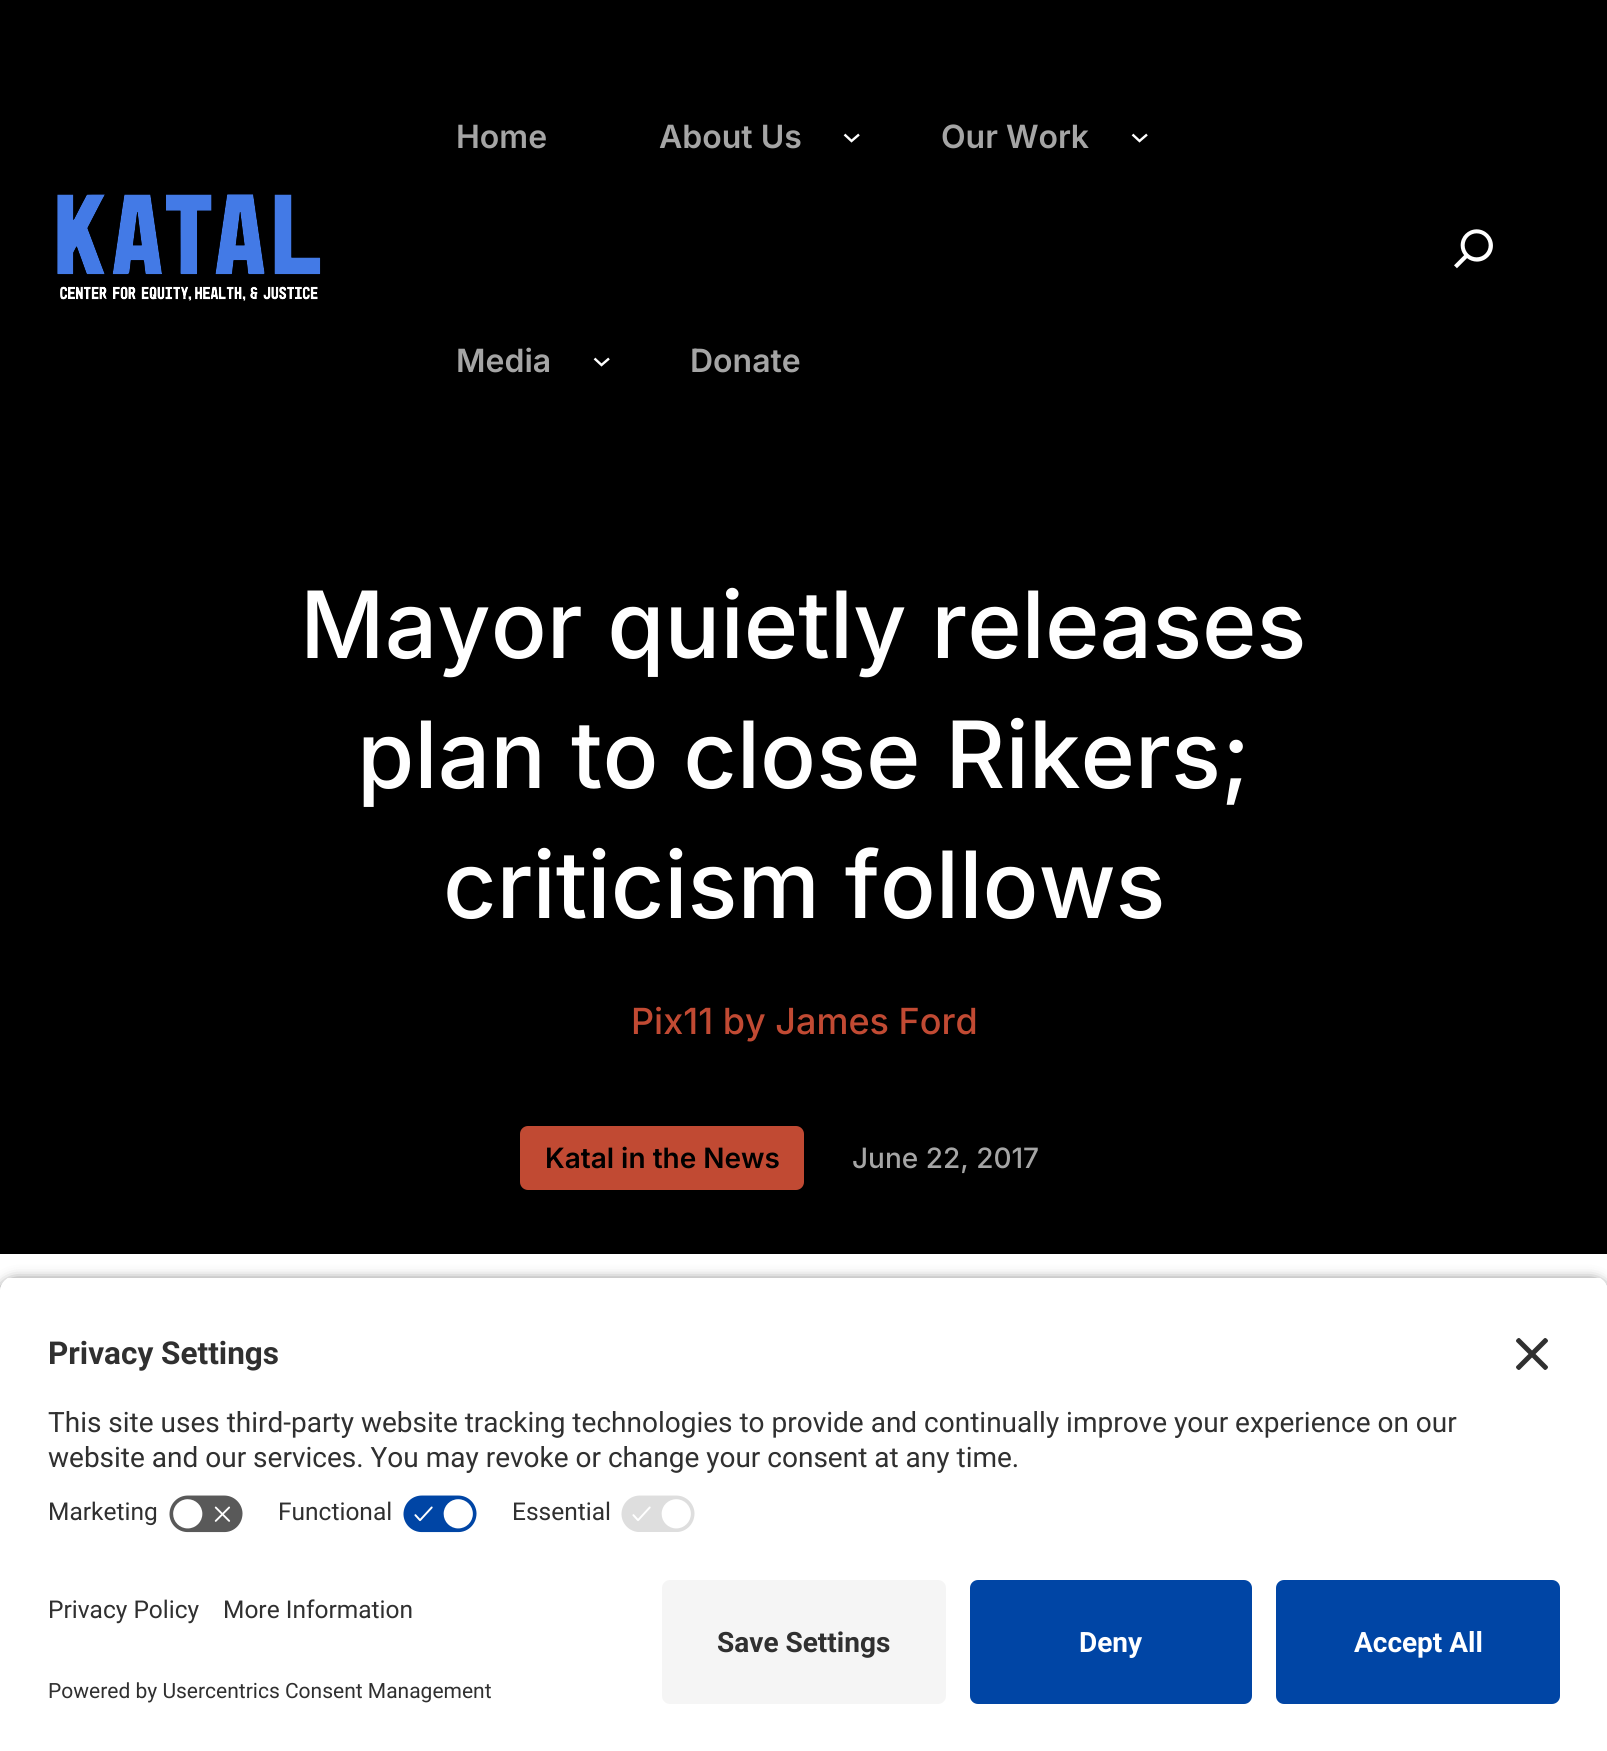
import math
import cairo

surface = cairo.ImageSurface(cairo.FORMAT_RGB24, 1607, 1751)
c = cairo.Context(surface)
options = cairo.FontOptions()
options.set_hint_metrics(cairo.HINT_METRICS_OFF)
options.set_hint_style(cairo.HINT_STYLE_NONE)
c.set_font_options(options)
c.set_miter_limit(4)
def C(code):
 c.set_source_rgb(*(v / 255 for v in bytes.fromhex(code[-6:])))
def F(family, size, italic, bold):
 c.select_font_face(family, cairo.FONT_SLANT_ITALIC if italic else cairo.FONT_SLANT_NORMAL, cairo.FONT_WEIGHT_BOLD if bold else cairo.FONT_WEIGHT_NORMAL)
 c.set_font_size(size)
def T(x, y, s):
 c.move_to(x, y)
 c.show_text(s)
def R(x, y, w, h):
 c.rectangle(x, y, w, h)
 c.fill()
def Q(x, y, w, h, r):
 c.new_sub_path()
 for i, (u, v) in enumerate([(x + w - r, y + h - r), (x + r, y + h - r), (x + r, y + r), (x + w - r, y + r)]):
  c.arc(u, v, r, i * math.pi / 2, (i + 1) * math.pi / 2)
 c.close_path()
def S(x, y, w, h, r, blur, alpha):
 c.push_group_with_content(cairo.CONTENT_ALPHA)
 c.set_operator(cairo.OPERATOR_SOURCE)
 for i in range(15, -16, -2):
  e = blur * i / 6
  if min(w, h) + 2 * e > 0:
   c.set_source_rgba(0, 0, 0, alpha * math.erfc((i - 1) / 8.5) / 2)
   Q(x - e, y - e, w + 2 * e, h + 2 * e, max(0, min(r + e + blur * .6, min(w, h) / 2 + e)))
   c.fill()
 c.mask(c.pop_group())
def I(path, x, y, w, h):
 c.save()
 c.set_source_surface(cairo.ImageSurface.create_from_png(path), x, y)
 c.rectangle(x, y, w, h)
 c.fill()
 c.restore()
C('ffffff')
c.paint()
C('000000')
R(0,0,1607,1254)
I('1.png',57,194,264,107)
F('Inter SemiBold',32,0,0)
C('a5a5a5')
T(456,148,'Home')
T(659,148,'About Us')
c.new_path()
c.move_to(844.5,134.5)
c.line_to(851.5,141)
c.line_to(859,134.5)
C('ffffff')
c.set_line_width(2.4)
c.stroke()
C('a5a5a5')
T(941,148,'Our Work')
c.new_path()
c.move_to(1132.5,134.5)
c.line_to(1139.5,141)
c.line_to(1147,134.5)
C('ffffff')
c.stroke()
C('a5a5a5')
T(456,372,'Media')
c.new_path()
c.move_to(594.5,358.5)
c.line_to(601.5,365)
c.line_to(609,358.5)
C('ffffff')
c.stroke()
C('a5a5a5')
T(690,372,'Donate')
I('2.png',1454,229,39,40)
F('Inter Medium',92.75,0,0)
C('ffffff')
T(300,658,'Mayor quietly releases')
T(357,788,'plan to close Rikers;')
T(443,918,'criticism follows')
F('Inter Medium',36,0,0)
C('c14a33')
T(631,1034,'Pix11 by James Ford')
Q(520,1126,284,64,8)
c.fill()
F('Inter SemiBold',28,0,0)
C('000000')
T(545,1168,'Katal in the News')
F('Inter Medium',28,0,0)
C('a5a5a5')
T(852,1168,'June 22, 2017')
C('000000')
S(0,1282,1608,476,16,7,.8)
c.save()
c.new_path()
c.move_to(16,1276)
c.line_to(1592,1276)
c.curve_to(1601,1276,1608,1283,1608,1292)
c.line_to(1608,1564)
c.line_to(0,1564)
c.line_to(0,1292)
c.curve_to(0,1283,7,1276,16,1276)
c.close_path()
c.clip()
C('ffffff')
R(0,1278,1607,286)
R(0,1278,1607,206)
c.restore()
F('Roboto',31.5,0,1)
C('303030')
T(48,1364,'Privacy Settings')
I('3.png',1516,1338,32,32)
F('Roboto',28,0,0)
T(48,1432,'This site uses third-party website tracking technologies to provide and continually improve your experience on our')
T(48,1467,'website and our services. You may revoke or change your consent at any time.')
F('Roboto',24.5,0,0)
T(48,1520,'Marketing')
I('4.png',169,1495,74,38)
T(278,1520,'Functional')
I('5.png',403,1495,74,38)
T(512,1520,'Essential')
I('6.png',621,1495,74,37)
C('ffffff')
R(0,1564,1607,187)
C('303030')
T(48,1618,'Privacy Policy')
T(223,1618,'More Information')
F('Roboto',21,0,0)
T(48,1698,'Powered by Usercentrics Consent Management')
C('f5f5f5')
Q(662,1580,284,124,8)
c.fill()
F('Roboto',28,0,1)
C('303030')
T(717,1652,'Save Settings')
C('0045a5')
Q(970,1580,282,124,8)
c.fill()
C('ffffff')
T(1079,1652,'Deny')
C('0045a5')
Q(1276,1580,284,124,8)
c.fill()
C('ffffff')
T(1354,1652,'Accept All')
surface.write_to_png('o.png')
